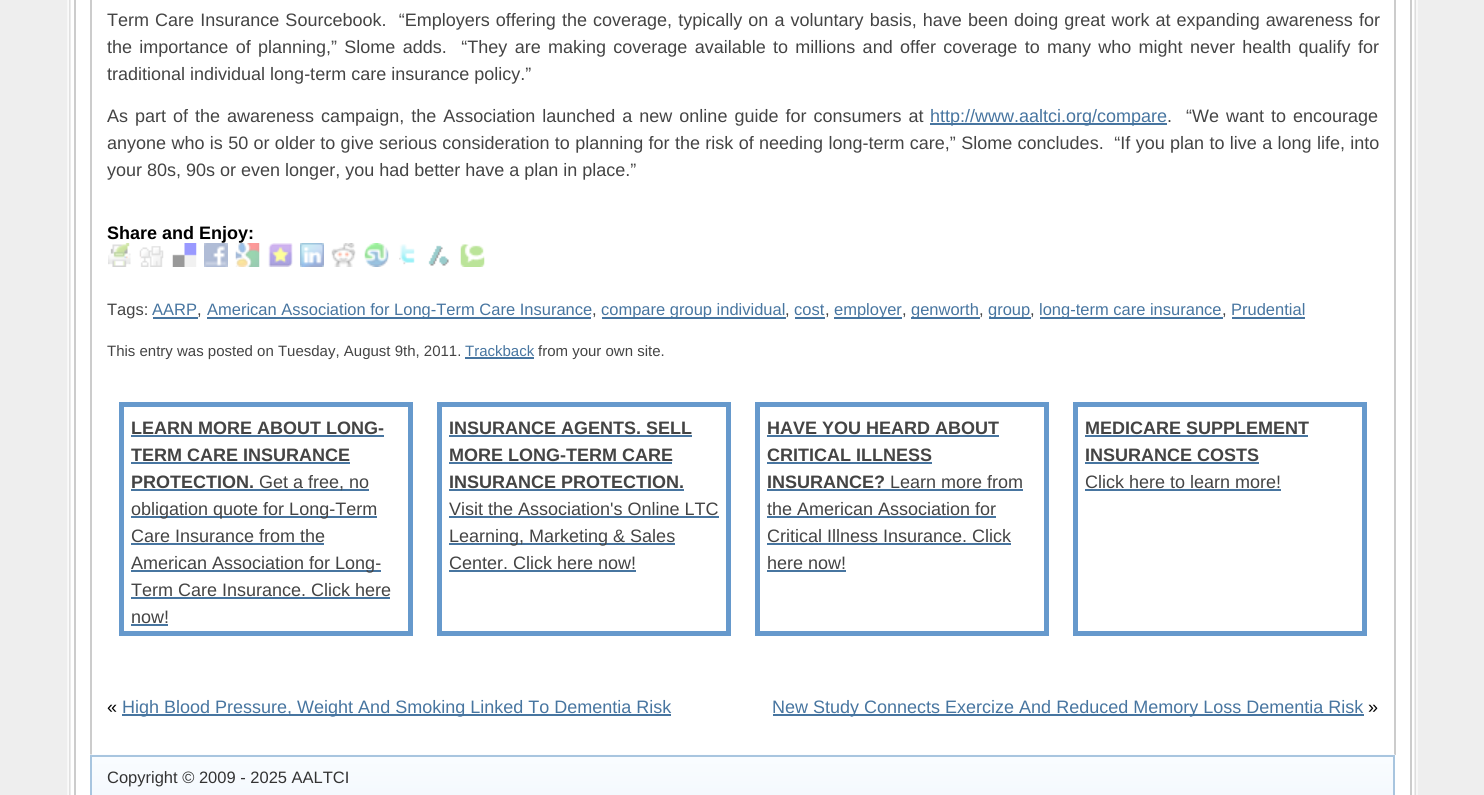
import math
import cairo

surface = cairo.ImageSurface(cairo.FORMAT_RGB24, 1484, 795)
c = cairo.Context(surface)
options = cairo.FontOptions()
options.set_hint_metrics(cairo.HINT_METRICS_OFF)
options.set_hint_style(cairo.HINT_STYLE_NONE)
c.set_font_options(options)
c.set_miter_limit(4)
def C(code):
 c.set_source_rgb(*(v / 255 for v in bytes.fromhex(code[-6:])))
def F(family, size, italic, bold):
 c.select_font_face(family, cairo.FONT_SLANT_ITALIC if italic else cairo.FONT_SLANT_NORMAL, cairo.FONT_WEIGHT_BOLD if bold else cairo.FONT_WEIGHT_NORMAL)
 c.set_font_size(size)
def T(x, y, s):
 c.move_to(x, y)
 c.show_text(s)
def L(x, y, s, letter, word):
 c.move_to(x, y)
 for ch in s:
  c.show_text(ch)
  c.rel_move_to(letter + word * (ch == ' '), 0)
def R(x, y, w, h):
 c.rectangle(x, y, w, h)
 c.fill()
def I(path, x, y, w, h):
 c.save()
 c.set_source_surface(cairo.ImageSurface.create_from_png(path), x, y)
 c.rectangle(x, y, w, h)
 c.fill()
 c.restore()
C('eeeeee')
c.paint()
I('1.png',67,0,1351,795)
C('ffffff')
R(89,0,1307,795)
C('cccccc')
R(1410,0,2,795)
R(74,0,2,795)
R(1394,0,2,755)
R(90,0,2,755)
F('Liberation Sans',18,0,0)
C('444444')
L(107,26,'Term Care Insurance Sourcebook.  “Employers offering the coverage, typically on a voluntary basis, have been doing great work at expanding awareness for',0,1.1)
L(107,53,'the importance of planning,” Slome adds.  “They are making coverage available to millions and offer coverage to many who might never health qualify for',0,2.3)
T(107,80,'traditional individual long-term care insurance policy.”')
L(107,122,'As part of the awareness campaign, the Association launched a new online guide for consumers at',0,2)
C('4775a0')
R(930,123,237,2)
T(930,122,'http://www.aaltci.org/compare')
C('444444')
L(1167,122,'.  “We want to encourage',0,2)
L(107,149,'anyone who is 50 or older to give serious consideration to planning for the risk of needing long-term care,” Slome concludes.  “If you plan to live a long life, into',0,.35)
T(107,176,'your 80s, 90s or even longer, you had better have a plan in place.”')
F('Liberation Sans',18,0,1)
C('000000')
T(107,239,'Share and Enjoy:')
I('2.png',108,243,23,24)
I('3.png',139,246,25,21)
I('4.png',172,243,25,24)
I('5.png',204,243,24,24)
I('6.png',235,243,25,24)
I('7.png',268,243,25,24)
I('8.png',300,243,24,24)
I('9.png',331,243,25,24)
I('10.png',364,243,25,24)
I('11.png',399,244,16,21)
I('12.png',428,245,21,21)
I('13.png',460,244,25,23)
F('Liberation Sans',16.5,0,0)
C('444444')
T(107,315,'Tags:')
C('4775a0')
T(152,315,'AARP')
R(153,317,45,2)
C('444444')
T(197,315,',')
C('4775a0')
R(207,317,384,2)
T(207,315,'American Association for Long-Term Care Insurance')
C('444444')
T(592,315,',')
C('4775a0')
R(602,317,184,2)
T(601,315,'compare group individual')
C('444444')
T(785,315,',')
C('4775a0')
T(794,315,'cost')
R(795,317,30,2)
C('444444')
T(825,315,',')
C('4775a0')
R(834,317,68,2)
T(834,315,'employer')
C('444444')
T(902,315,',')
C('4775a0')
R(911,317,69,2)
T(911,315,'genworth')
C('444444')
T(979,315,',')
C('4775a0')
R(989,317,42,2)
T(988,315,'group')
C('444444')
T(1030,315,',')
C('4775a0')
R(1040,317,183,2)
T(1039,315,'long-term care insurance')
C('444444')
T(1222,315,',')
C('4775a0')
T(1231,315,'Prudential')
R(1232,317,73,2)
F('Liberation Sans',15,0,0)
C('444444')
T(107,356,'This entry was posted on Tuesday, August 9th, 2011.')
C('4775a0')
T(465,356,'Trackback')
R(465,357,69,2)
C('444444')
T(538,356,'from your own site.')
c.rectangle(121.5,404.5,289,229)
C('6699cc')
c.set_line_width(5)
c.stroke()
F('Liberation Sans',18,0,1)
C('444444')
T(131,434,'LEARN MORE ABOUT LONG-')
C('4775a0')
R(131,435,253,2)
C('444444')
T(131,461,'TERM CARE INSURANCE')
C('4775a0')
R(131,462,219,2)
C('444444')
T(131,488,'PROTECTION.')
C('4775a0')
R(131,489,238,2)
F('Liberation Sans',18,0,0)
C('444444')
T(259,488,'Get a free, no')
C('4775a0')
R(131,516,246,2)
C('444444')
T(131,515,'obligation quote for Long-Term')
T(131,542,'Care Insurance from the')
C('4775a0')
R(131,543,193,2)
R(131,570,250,2)
C('444444')
T(131,569,'American Association for Long-')
T(131,596,'Term Care Insurance. Click here')
C('4775a0')
R(131,597,259,2)
C('444444')
T(131,623,'now!')
C('4775a0')
R(131,624,37,2)
c.rectangle(439.5,404.5,289,229)
C('6699cc')
c.stroke()
F('Liberation Sans',18,0,1)
C('444444')
T(449,434,'INSURANCE AGENTS. SELL')
C('4775a0')
R(449,435,243,2)
C('444444')
T(449,461,'MORE LONG-TERM CARE')
C('4775a0')
R(449,462,223,2)
C('444444')
T(449,488,'INSURANCE PROTECTION.')
C('4775a0')
R(449,489,235,2)
F('Liberation Sans',18,0,0)
C('444444')
T(449,515,'Visit the Association\'s Online LTC')
C('4775a0')
R(449,516,270,2)
R(449,543,226,2)
C('444444')
T(449,542,'Learning, Marketing & Sales')
T(449,569,'Center. Click here now!')
C('4775a0')
R(449,570,187,2)
c.rectangle(757.5,404.5,289,229)
C('6699cc')
c.stroke()
F('Liberation Sans',18,0,1)
C('444444')
T(767,434,'HAVE YOU HEARD ABOUT')
C('4775a0')
R(767,435,232,2)
C('444444')
T(767,461,'CRITICAL ILLNESS')
C('4775a0')
R(767,462,165,2)
C('444444')
T(767,488,'INSURANCE?')
C('4775a0')
R(767,489,256,2)
F('Liberation Sans',18,0,0)
C('444444')
T(890,488,'Learn more from')
T(767,515,'the American Association for')
C('4775a0')
R(767,516,229,2)
C('444444')
T(767,542,'Critical Illness Insurance. Click')
C('4775a0')
R(767,543,244,2)
C('444444')
T(767,569,'here now!')
C('4775a0')
R(767,570,79,2)
c.rectangle(1075.5,404.5,289,229)
C('6699cc')
c.stroke()
F('Liberation Sans',18,0,1)
C('444444')
T(1085,434,'MEDICARE SUPPLEMENT')
C('4775a0')
R(1085,435,223,2)
C('444444')
T(1085,461,'INSURANCE COSTS')
C('4775a0')
R(1085,462,174,2)
F('Liberation Sans',18,0,0)
C('444444')
T(1085,488,'Click here to learn more!')
C('4775a0')
R(1085,489,196,2)
C('000000')
T(107,713,'«')
C('4775a0')
R(122,714,549,2)
T(122,713,'High Blood Pressure, Weight And Smoking Linked To Dementia Risk')
R(773,714,591,2)
T(772,713,'New Study Connects Exercize And Reduced Memory Loss Dementia Risk')
C('000000')
T(1368,713,'»')
I('14.png',90,754,1305,41)
c.rectangle(91,756,1303,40)
C('a8c5df')
c.set_line_width(2)
c.stroke()
F('Liberation Sans',16.5,0,0)
C('333333')
T(107,783,'Copyright © 2009 - 2025 AALTCI')
surface.write_to_png('o.png')
